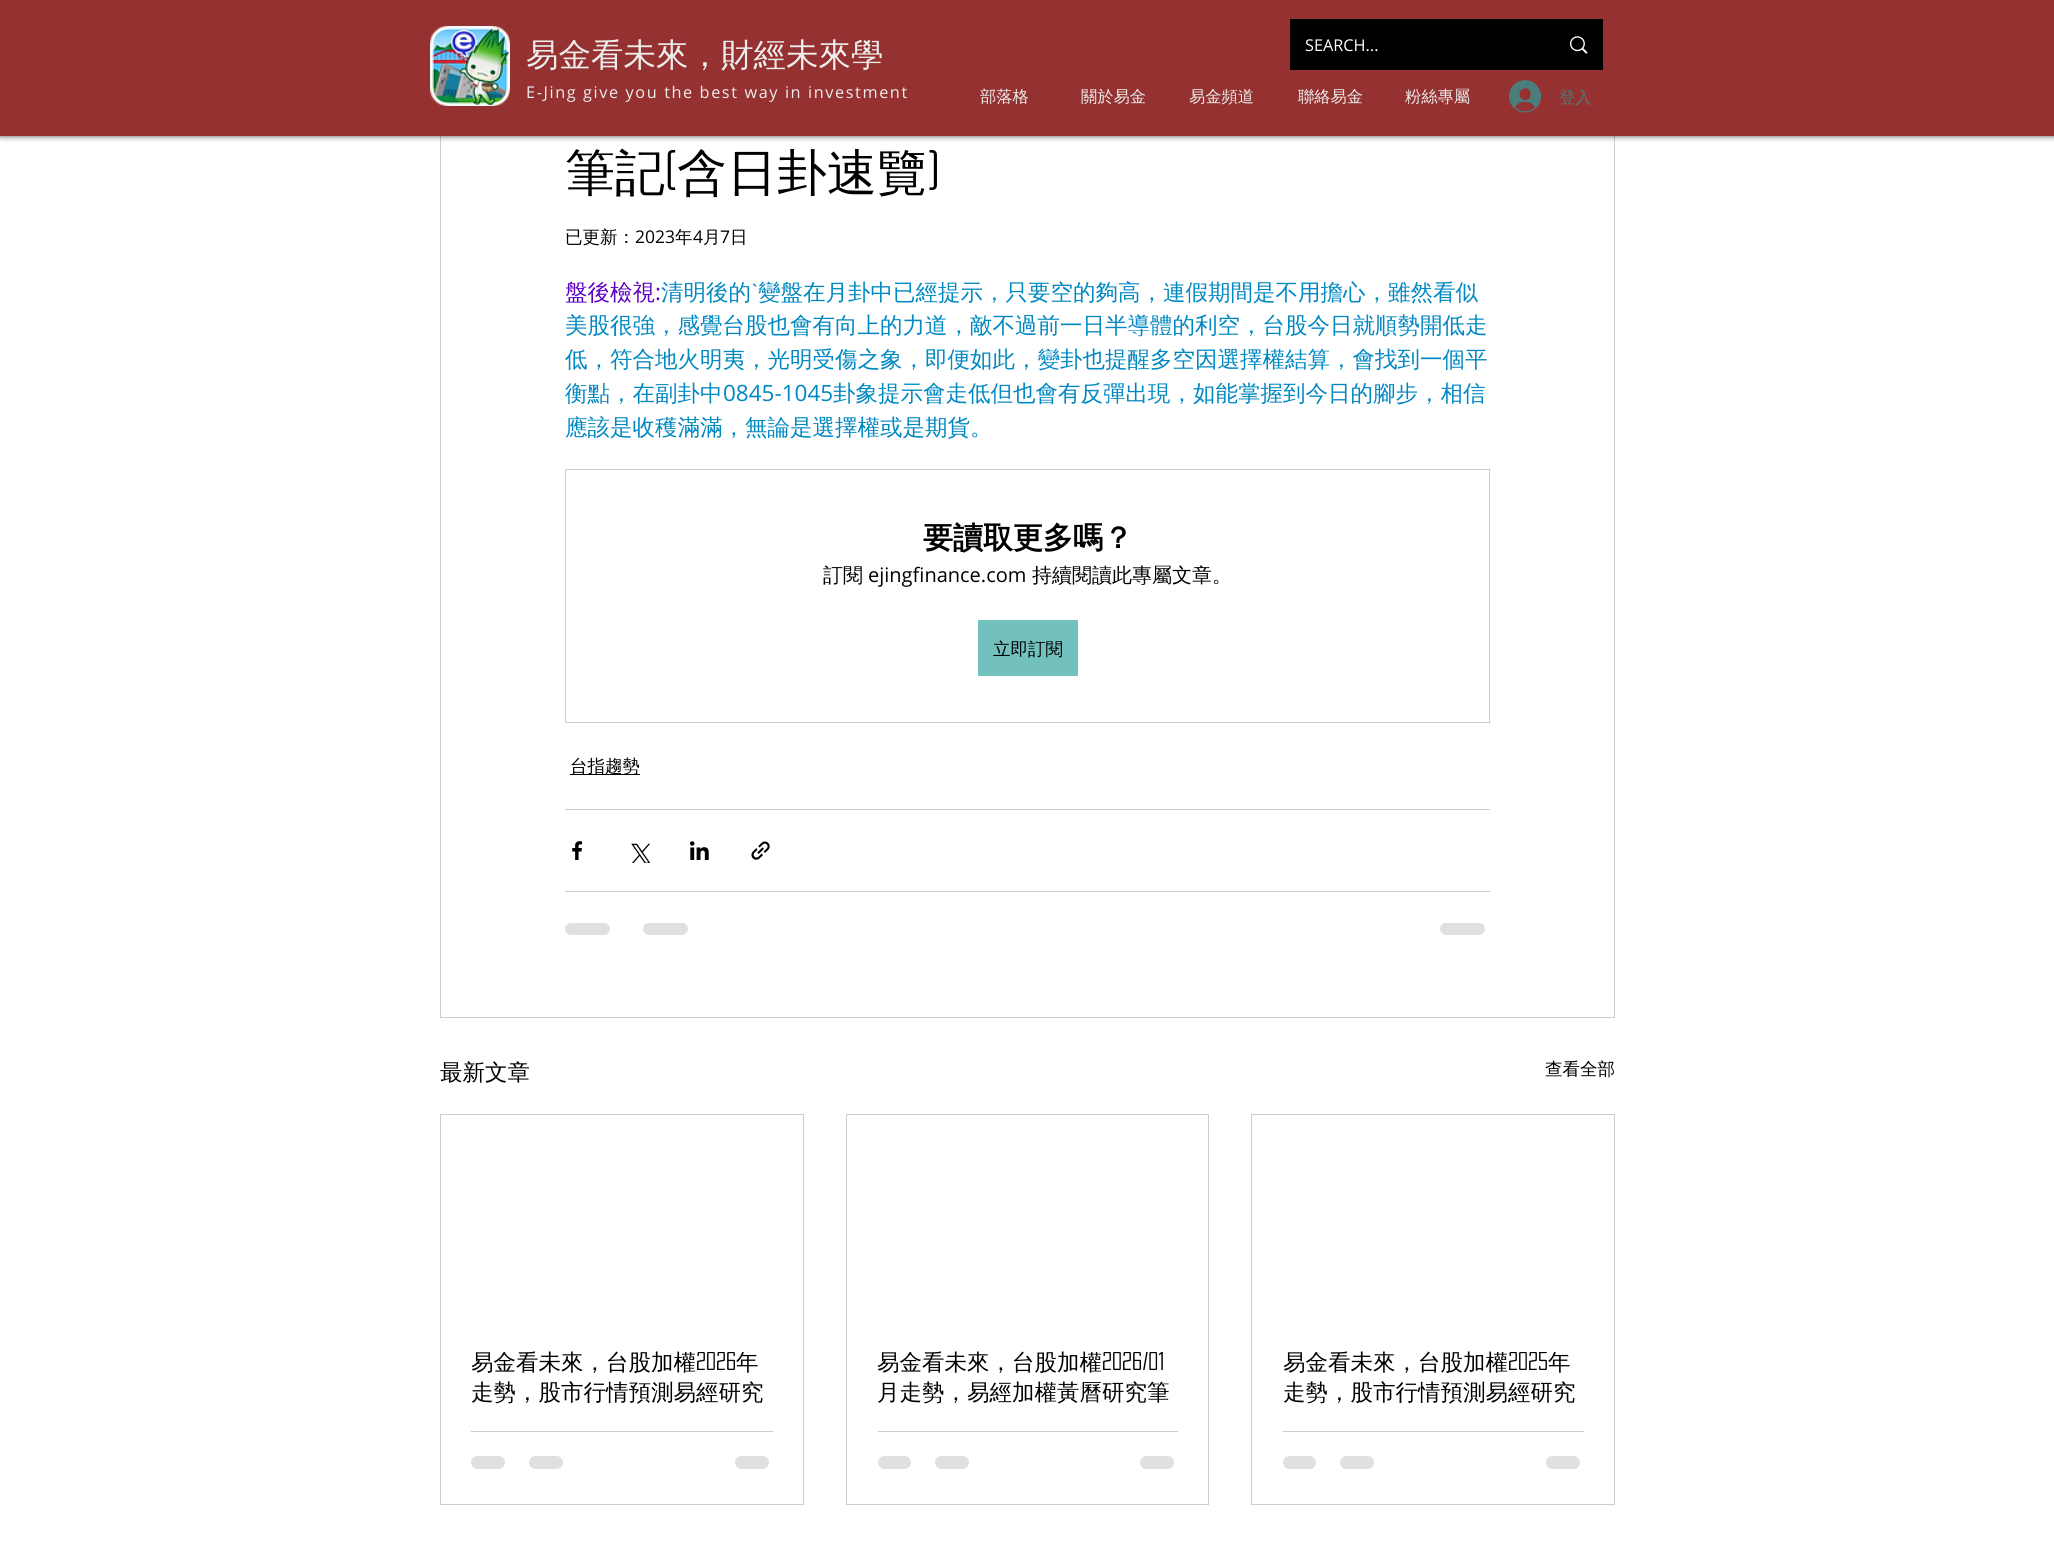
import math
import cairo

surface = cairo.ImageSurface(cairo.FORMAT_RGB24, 2054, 1548)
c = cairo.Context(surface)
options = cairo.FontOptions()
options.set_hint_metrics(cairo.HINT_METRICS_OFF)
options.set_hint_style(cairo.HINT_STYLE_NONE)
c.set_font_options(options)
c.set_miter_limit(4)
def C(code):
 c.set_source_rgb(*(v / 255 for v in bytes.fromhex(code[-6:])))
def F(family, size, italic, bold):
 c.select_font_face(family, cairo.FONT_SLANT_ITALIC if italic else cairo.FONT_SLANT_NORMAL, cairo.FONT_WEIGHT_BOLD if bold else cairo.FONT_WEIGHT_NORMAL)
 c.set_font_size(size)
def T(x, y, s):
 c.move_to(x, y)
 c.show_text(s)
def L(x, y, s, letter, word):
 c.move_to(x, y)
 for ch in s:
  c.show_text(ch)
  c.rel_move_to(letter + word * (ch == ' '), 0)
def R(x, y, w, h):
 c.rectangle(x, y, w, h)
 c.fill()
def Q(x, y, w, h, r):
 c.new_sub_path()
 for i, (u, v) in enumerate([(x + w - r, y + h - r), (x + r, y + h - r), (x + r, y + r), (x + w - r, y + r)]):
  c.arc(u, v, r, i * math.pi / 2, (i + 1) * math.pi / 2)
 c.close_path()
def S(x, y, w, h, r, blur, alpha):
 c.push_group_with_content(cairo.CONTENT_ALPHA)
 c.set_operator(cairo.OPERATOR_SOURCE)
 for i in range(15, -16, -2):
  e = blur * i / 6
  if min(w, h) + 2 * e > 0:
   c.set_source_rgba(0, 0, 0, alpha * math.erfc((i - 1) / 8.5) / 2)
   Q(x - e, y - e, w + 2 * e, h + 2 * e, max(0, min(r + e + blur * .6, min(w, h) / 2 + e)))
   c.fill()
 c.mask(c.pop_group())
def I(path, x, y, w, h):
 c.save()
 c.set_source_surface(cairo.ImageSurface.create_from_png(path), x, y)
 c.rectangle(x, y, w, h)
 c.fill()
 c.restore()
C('ffffff')
c.paint()
c.rectangle(440.5,-.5,1174,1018)
C('cdcdc9')
c.set_line_width(1)
c.stroke()
C('000000')
S(0,0,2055,136,0,3,.7)
C('953131')
R(0,0,2054,136)
I('1.png',430,26,80,80)
F('WenQuanYi Zen Hei Medium',32.5,0,0)
C('ededec')
T(526,66,'易金看未來，財經未來學')
F('Open Sans',16.25,0,0)
L(526,98,'E-Jing give you the best way in investment',1.6,0)
C('000000')
R(1290,19,313,51)
C('ffffff')
T(1305,51,'SEARCH...')
I('2.png',1570,36,18,18)
F('WenQuanYi Zen Hei Medium',16.25,0,0)
C('ededec')
T(980,102,'部落格')
T(1081,102,'關於易金')
T(1189,102,'易金頻道')
T(1298,102,'聯絡易金')
T(1405,102,'粉絲專屬')
I('3.png',1509,80,32,33)
C('4a7d7c')
T(1559,103,'登入')
F('WenQuanYi Zen Hei Medium',50,0,0)
C('000000')
T(565,190,'筆記')
F('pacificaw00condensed',50,0,0)
T(665,190,'(')
F('WenQuanYi Zen Hei Medium',50,0,0)
T(677,190,'含日卦速覽')
F('pacificaw00condensed',50,0,0)
T(927,190,')')
F('WenQuanYi Zen Hei Medium',17.5,0,0)
T(565,243,'已更新：')
F('Open Sans',17.5,0,0)
T(635,243,'2023')
F('WenQuanYi Zen Hei Medium',17.5,0,0)
T(675,243,'年')
F('Open Sans',17.5,0,0)
T(693,243,'4')
F('WenQuanYi Zen Hei Medium',17.5,0,0)
T(703,243,'月')
F('Open Sans',17.5,0,0)
T(720,243,'7')
F('WenQuanYi Zen Hei Medium',17.5,0,0)
T(730,243,'日')
F('WenQuanYi Zen Hei Medium',22.5,0,0)
C('5c00c4')
T(565,300,'盤後檢視')
C('0088c2')
T(661,300,'清明後的')
F('Liberation Sans',22.5,0,0)
T(751,300,'ˋ')
F('WenQuanYi Zen Hei Medium',22.5,0,0)
T(758,300,'變盤在月卦中已經提示，只要空的夠高，連假期間是不用擔心，雖然看似')
F('Open Sans',22.5,0,0)
C('5c00c4')
T(655,300,':')
F('WenQuanYi Zen Hei Medium',22.5,0,0)
C('0088c2')
T(565,333,'美股很強，感覺台股也會有向上的力道，敵不過前一日半導體的利空，台股今日就順勢開低走')
T(565,367,'低，符合地火明夷，光明受傷之象，即便如此，變卦也提醒多空因選擇權結算，會找到一個平')
T(565,401,'衡點，在副卦中')
F('Open Sans',22.5,0,0)
T(723,401,'0845-1045')
F('WenQuanYi Zen Hei Medium',22.5,0,0)
T(833,401,'卦象提示會走低但也會有反彈出現，如能掌握到今日的腳步，相信')
T(565,435,'應該是收穫滿滿，無論是選擇權或是期貨。')
c.rectangle(565.5,469.5,924,253)
C('cccccc')
c.stroke()
F('WenQuanYi Zen Hei',30,0,1)
C('000000')
T(923,548,'要讀取更多嗎？')
F('WenQuanYi Zen Hei Medium',20,0,0)
T(823,582,'訂閱')
F('Open Sans',20,0,0)
T(868,582,'ejingfinance.com')
F('WenQuanYi Zen Hei Medium',20,0,0)
T(1032,582,'持續閱讀此專屬文章。')
C('72c1bf')
R(978,620,100,56)
F('WenQuanYi Zen Hei Medium',17.5,0,0)
C('000000')
T(993,655,'立即訂閱')
R(570,774,70,1)
T(570,772,'台指趨勢')
C('cccccc')
R(565,809,925,1)
I('4.png',572,841,10,19)
I('5.png',631,843,19,20)
I('6.png',690,841,19,19)
I('7.png',751,841,19,19)
R(565,891,925,1)
C('e0e0e0')
Q(565,923,45,12,6)
c.fill()
Q(643,923,45,12,6)
c.fill()
Q(1440,923,45,12,6)
c.fill()
F('WenQuanYi Zen Hei Medium',22.5,0,0)
C('000000')
T(440,1080,'最新文章')
F('WenQuanYi Zen Hei Medium',17.5,0,0)
T(1545,1075,'查看全部')
c.rectangle(440.5,1114.5,363,390)
C('cdcdc9')
c.stroke()
F('WenQuanYi Zen Hei Medium',22.5,0,0)
C('000000')
T(471,1370,'易金看未來，台股加權')
F('pacificaw00condensed',22.5,0,0)
T(696,1370,'2026')
F('WenQuanYi Zen Hei Medium',22.5,0,0)
T(736,1370,'年')
T(471,1400,'走勢，股市行情預測易經研究')
C('cccccc')
R(471,1431,302,1)
C('e0e0e0')
Q(471,1456,34,13,6.5)
c.fill()
Q(529,1456,34,13,6.5)
c.fill()
Q(735,1456,34,13,6.5)
c.fill()
c.rectangle(846.5,1114.5,362,390)
C('cdcdc9')
c.stroke()
C('000000')
T(877,1370,'易金看未來，台股加權')
F('pacificaw00condensed',22.5,0,0)
T(1102,1370,'2026/01')
F('WenQuanYi Zen Hei Medium',22.5,0,0)
T(877,1400,'月走勢，易經加權黃曆研究筆')
C('cccccc')
R(878,1431,300,1)
C('e0e0e0')
Q(878,1456,33,13,6.5)
c.fill()
Q(935,1456,34,13,6.5)
c.fill()
Q(1140,1456,34,13,6.5)
c.fill()
c.rectangle(1251.5,1114.5,363,390)
C('cdcdc9')
c.stroke()
C('000000')
T(1283,1370,'易金看未來，台股加權')
F('pacificaw00condensed',22.5,0,0)
T(1508,1370,'2025')
F('WenQuanYi Zen Hei Medium',22.5,0,0)
T(1548,1370,'年')
T(1283,1400,'走勢，股市行情預測易經研究')
C('cccccc')
R(1283,1431,301,1)
C('e0e0e0')
Q(1283,1456,33,13,6.5)
c.fill()
Q(1340,1456,34,13,6.5)
c.fill()
Q(1546,1456,34,13,6.5)
c.fill()
surface.write_to_png('o.png')
